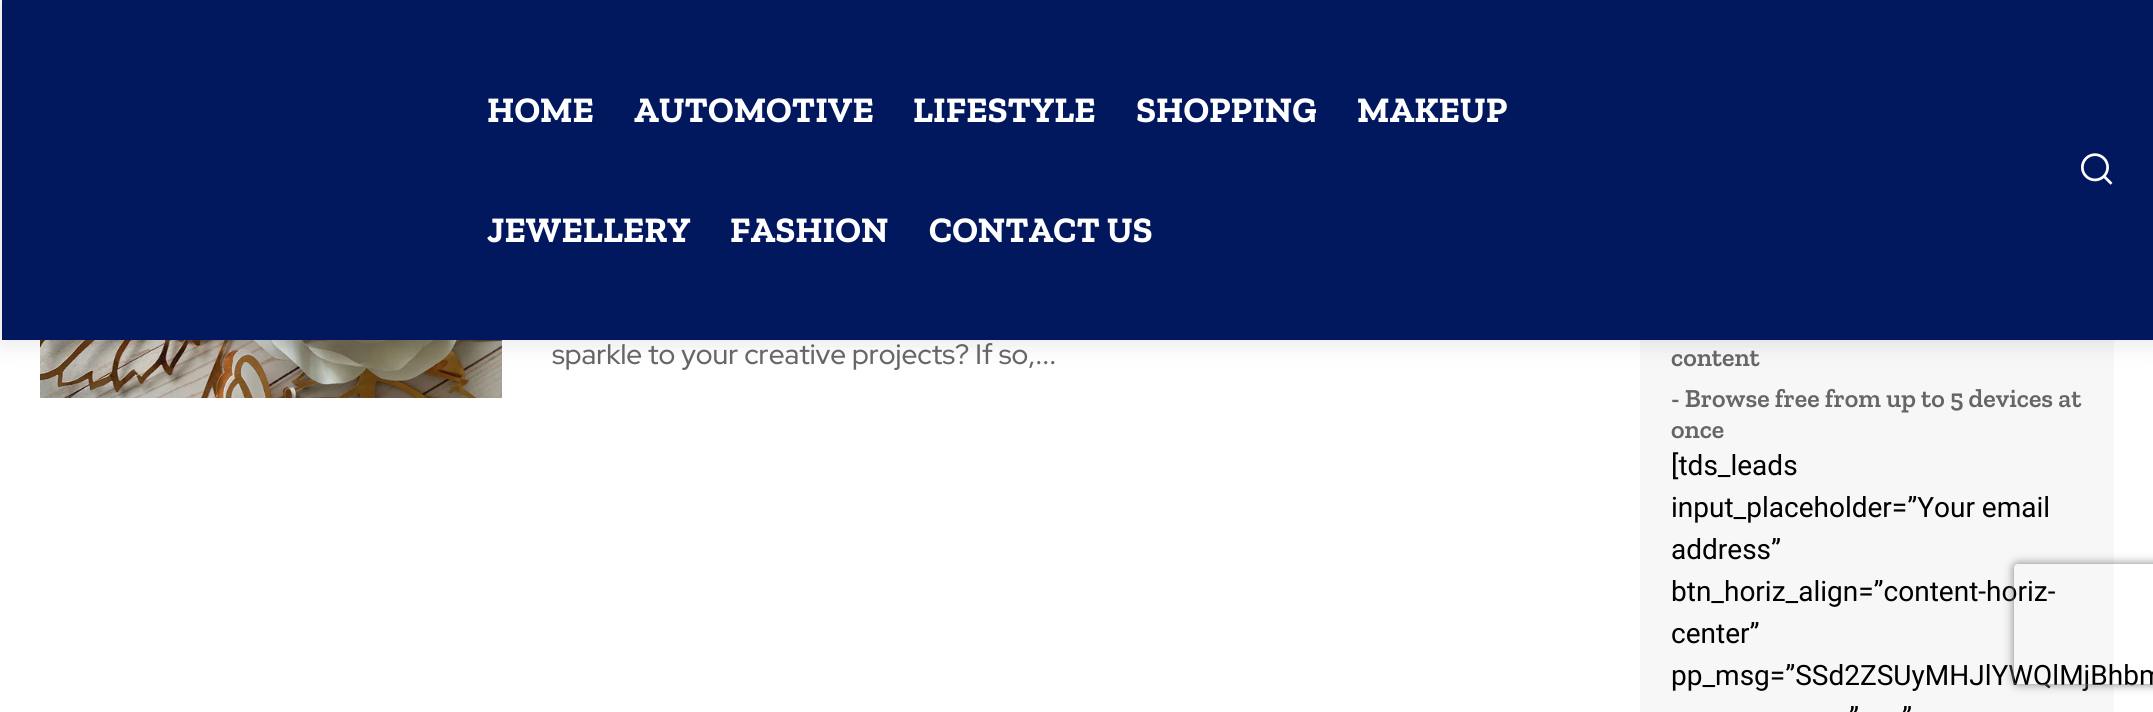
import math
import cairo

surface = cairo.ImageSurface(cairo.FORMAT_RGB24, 2153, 712)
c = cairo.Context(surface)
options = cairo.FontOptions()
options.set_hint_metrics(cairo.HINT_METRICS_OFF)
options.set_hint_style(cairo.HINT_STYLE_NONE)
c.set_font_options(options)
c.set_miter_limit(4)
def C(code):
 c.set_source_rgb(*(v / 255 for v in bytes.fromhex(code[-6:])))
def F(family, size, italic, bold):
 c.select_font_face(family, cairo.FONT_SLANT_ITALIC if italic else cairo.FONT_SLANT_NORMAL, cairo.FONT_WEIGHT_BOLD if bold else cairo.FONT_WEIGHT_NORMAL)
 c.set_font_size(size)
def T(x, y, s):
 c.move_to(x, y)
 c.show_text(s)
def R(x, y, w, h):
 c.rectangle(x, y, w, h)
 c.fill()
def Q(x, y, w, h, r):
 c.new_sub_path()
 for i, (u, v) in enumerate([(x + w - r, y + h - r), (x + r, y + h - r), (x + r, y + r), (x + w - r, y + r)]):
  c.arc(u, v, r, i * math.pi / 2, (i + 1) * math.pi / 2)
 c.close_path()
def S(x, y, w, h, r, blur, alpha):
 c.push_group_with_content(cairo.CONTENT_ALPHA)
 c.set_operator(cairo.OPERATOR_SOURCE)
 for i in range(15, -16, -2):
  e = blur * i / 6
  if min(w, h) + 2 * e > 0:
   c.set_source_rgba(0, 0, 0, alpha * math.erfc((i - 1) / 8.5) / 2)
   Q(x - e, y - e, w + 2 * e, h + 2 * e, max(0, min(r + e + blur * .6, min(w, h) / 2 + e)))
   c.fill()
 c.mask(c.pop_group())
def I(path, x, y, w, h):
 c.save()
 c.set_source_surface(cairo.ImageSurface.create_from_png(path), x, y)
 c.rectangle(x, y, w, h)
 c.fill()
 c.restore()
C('ffffff')
c.paint()
C('01175e')
R(2,0,2151,340)
I('2.png',40,340,462,58)
C('f7f7f7')
R(1640,340,474,372)
c.save()
c.set_fill_rule(cairo.FILL_RULE_EVEN_ODD)
c.new_path()
c.move_to(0,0)
c.line_to(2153,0)
c.line_to(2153,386)
c.line_to(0,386)
c.close_path()
c.move_to(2,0)
c.line_to(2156,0)
c.line_to(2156,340)
c.line_to(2,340)
c.close_path()
c.clip()
C('000000')
S(2,0,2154,340,0,15,.12)
c.restore()
F('Zilla Slab',36,0,1)
C('ffffff')
T(487,122,'HOME')
T(634,122,'AUTOMOTIVE')
T(913,122,'LIFESTYLE')
T(1136,122,'SHOPPING')
T(1357,122,'MAKEUP')
T(487,242,'JEWELLERY')
T(730,242,'FASHION')
T(929,242,'CONTACT US')
I('1.png',2081,153,32,32)
F('Red Hat Display Medium',28,0,0)
C('666666')
T(552,364,'sparkle to your creative projects? If so,...')
F('Zilla Slab SemiBold',26,0,0)
T(1671,366,'content')
T(1671,407,'- Browse free from up to 5 devices at')
T(1671,438,'once')
F('Roboto',28,0,0)
C('000000')
T(1671,475,'[tds_leads')
T(1671,517,'input_placeholder=”Your email')
T(1671,559,'address”')
T(1671,601,'btn_horiz_align=”content-horiz-')
T(1671,643,'center”')
T(1671,685,'pp_msg=”SSd2ZSUyMHJlYWQlMjBhbm')
T(1849,727,'”')
T(1902,727,'”')
c.save()
c.set_fill_rule(cairo.FILL_RULE_EVEN_ODD)
c.new_path()
c.move_to(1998,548)
c.line_to(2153,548)
c.line_to(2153,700)
c.line_to(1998,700)
c.close_path()
c.move_to(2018,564)
c.line_to(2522,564)
c.curve_to(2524,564,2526,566,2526,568)
c.line_to(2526,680)
c.curve_to(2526,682,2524,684,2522,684)
c.line_to(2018,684)
c.curve_to(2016,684,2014,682,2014,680)
c.line_to(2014,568)
c.curve_to(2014,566,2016,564,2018,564)
c.close_path()
c.clip()
C('808080')
S(2014,564,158,120,4,5,1)
c.restore()
surface.write_to_png('o.png')
